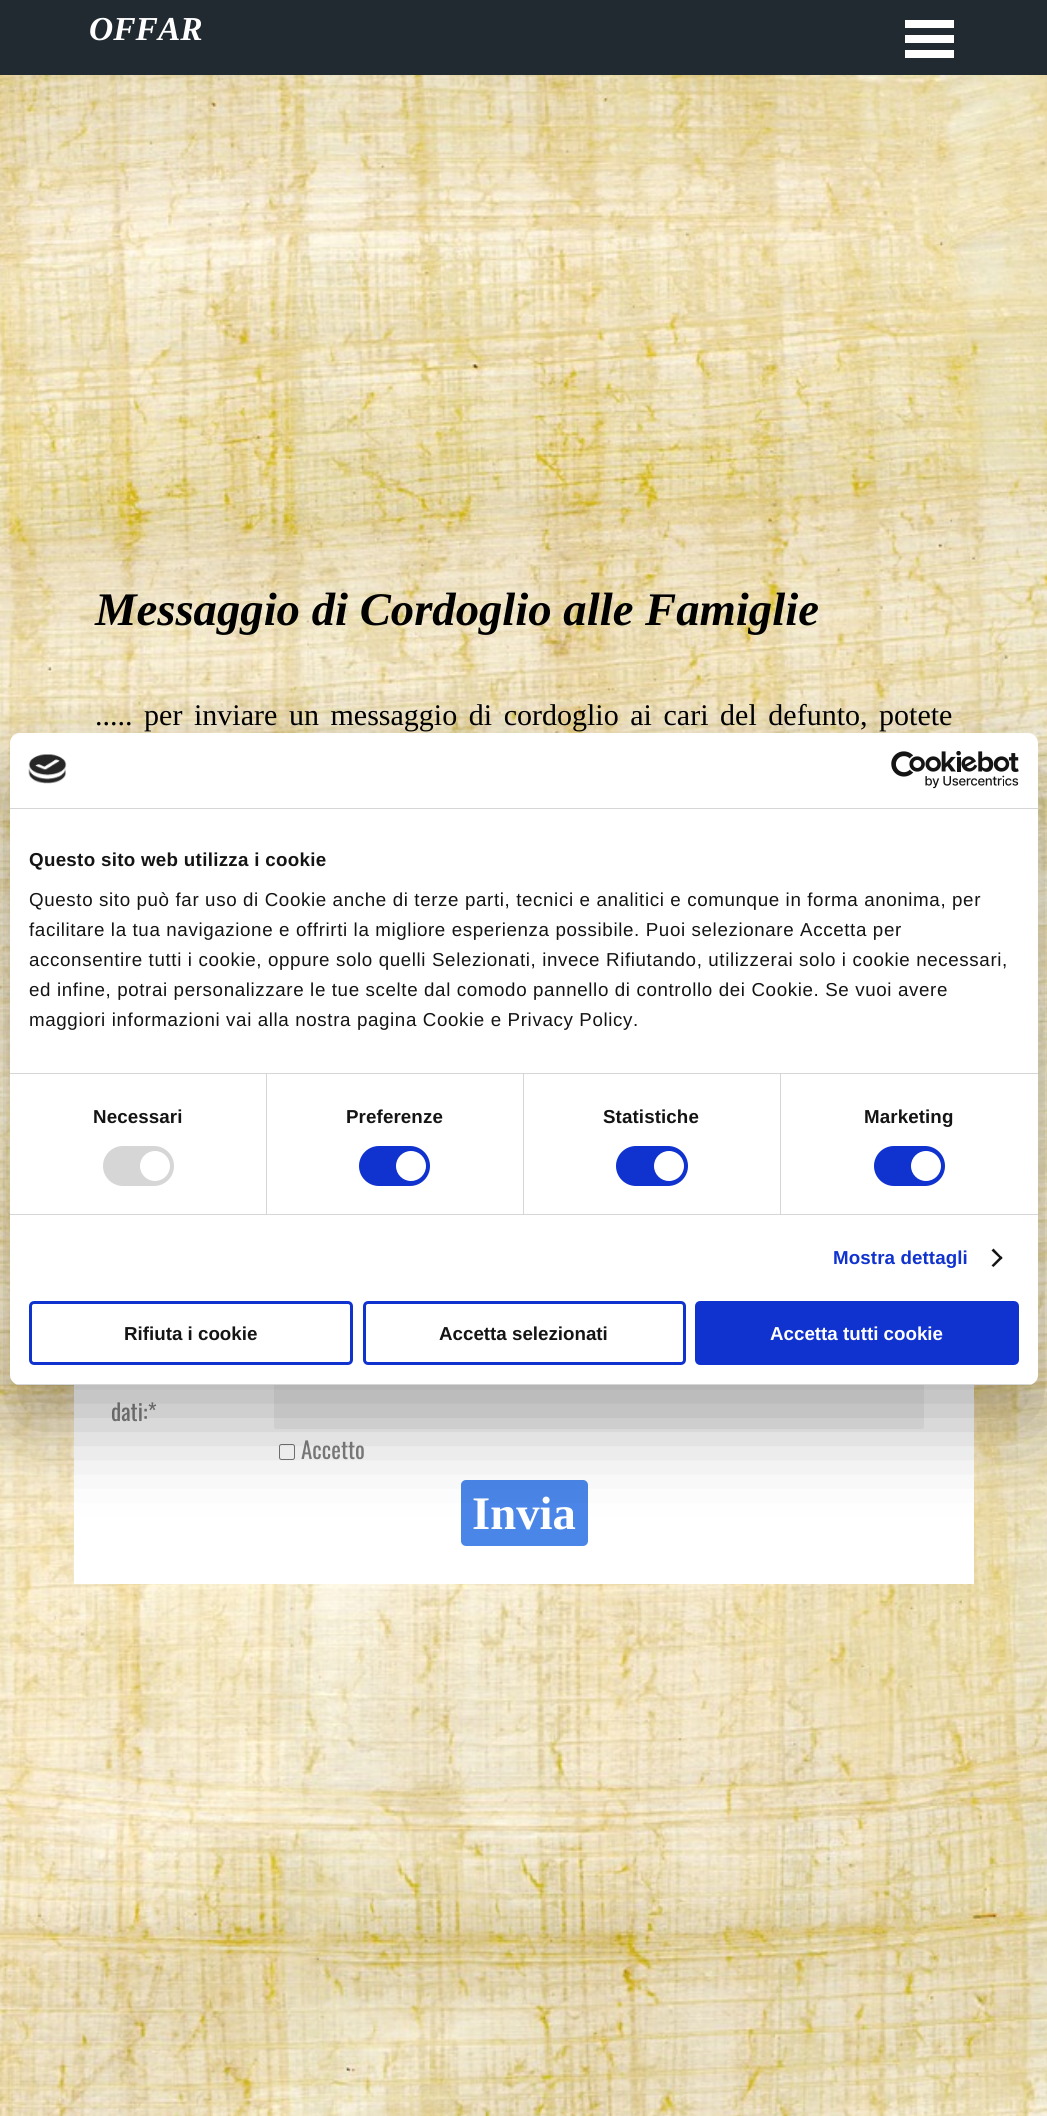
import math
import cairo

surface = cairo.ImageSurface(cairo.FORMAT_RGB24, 1047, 2116)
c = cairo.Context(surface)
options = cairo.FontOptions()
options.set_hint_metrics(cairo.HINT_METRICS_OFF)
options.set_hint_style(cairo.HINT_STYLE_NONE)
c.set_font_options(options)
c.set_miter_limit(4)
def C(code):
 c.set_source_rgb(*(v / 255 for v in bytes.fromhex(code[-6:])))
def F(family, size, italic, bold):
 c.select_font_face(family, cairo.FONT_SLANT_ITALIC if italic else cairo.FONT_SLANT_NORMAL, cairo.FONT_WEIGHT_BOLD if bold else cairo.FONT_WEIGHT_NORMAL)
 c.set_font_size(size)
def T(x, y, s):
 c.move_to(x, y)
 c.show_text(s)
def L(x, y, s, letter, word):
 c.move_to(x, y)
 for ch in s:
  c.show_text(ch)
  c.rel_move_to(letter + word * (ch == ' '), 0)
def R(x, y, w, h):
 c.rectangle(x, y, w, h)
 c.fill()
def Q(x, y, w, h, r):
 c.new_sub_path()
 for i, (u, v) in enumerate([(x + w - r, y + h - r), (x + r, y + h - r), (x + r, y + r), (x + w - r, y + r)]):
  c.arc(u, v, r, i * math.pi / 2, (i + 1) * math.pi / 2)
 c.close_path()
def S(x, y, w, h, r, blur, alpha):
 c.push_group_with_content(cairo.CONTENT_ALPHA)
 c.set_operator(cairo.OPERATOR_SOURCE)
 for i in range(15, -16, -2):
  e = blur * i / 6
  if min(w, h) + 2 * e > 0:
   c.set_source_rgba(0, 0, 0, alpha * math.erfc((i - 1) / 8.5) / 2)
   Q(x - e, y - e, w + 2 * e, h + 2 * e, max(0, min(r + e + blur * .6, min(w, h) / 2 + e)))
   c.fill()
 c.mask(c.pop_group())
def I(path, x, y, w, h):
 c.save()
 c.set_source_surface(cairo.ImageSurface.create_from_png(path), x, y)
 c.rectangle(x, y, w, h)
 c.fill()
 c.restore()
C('212a31')
c.paint()
F('Liberation Serif',33.5,1,1)
C('ffffff')
T(89,40,'OFFAR')
R(905,20,49,8)
R(905,35,49,8)
R(905,50,49,8)
I('1.png',0,75,1047,2041)
F('Liberation Serif',46.7,1,1)
C('000000')
T(95,625,'Messaggio di Cordoglio alle Famiglie')
F('Liberation Serif',30,0,0)
L(95,725,'..... per inviare un messaggio di cordoglio ai cari del defunto, potete',0,4.1)
C('ffffff')
R(74,1385,900,199)
F('Oswald',23,0,0)
C('808080')
T(111,1421,'dati:*')
C('f2f2f2')
Q(274.5,1324.5,649,104,2)
c.fill_preserve()
c.set_line_width(1)
c.stroke()
Q(279.5,1444.5,15,15,2)
C('767676')
c.stroke()
C('808080')
T(301,1459,'Accetto')
C('4a86e8')
Q(461,1480,127,66,5)
c.fill()
F('Liberation Serif',46.7,0,1)
C('ffffff')
T(472,1529,'Invia')
C('000000')
S(10,773,1028,652,10,42.5,.3)
C('ffffff')
Q(10,733,1028,652,10)
c.fill()
C('d6d6d6')
R(10,808,1028,1)
I('2.png',28,754,39,30)
I('3.png',891,751,128,38)
R(10,1073,1028,1)
F('Liberation Sans',18.75,0,1)
C('141414')
L(29,866,'Questo sito web utilizza i cookie',.3,0)
F('Liberation Sans',18.75,0,0)
L(29,906,'Questo sito può far uso di Cookie anche di terze parti, tecnici e analitici e comunque in forma anonima, per',.62,0)
L(29,936,'facilitare la tua navigazione e offrirti la migliore esperienza possibile. Puoi selezionare Accetta per',.62,0)
L(29,966,'acconsentire tutti i cookie, oppure solo quelli Selezionati, invece Rifiutando, utilizzerai solo i cookie necessari,',.62,0)
L(29,996,'ed infine, potrai personalizzare le tue scelte dal comodo pannello di controllo dei Cookie. Se vuoi avere',.62,0)
L(29,1026,'maggiori informazioni vai alla nostra pagina Cookie e Privacy Policy.',.62,0)
C('d6d6d6')
R(10,1214,1028,1)
R(266,1074,1,140)
F('Liberation Sans',18.75,0,1)
C('141414')
L(93,1123,'Necessari',.1,0)
C('d6d6d6')
Q(103,1146,71,40,20)
c.fill()
C('ffffff')
c.arc(155,1166,15,0,2 * math.pi)
c.fill()
C('d6d6d6')
R(523,1074,1,140)
C('141414')
L(346,1123,'Preferenze',.1,0)
C('1032cf')
Q(359,1146,71,40,20)
c.fill()
C('ffffff')
c.arc(411,1166,15,0,2 * math.pi)
c.fill()
C('d6d6d6')
R(780,1074,1,140)
C('141414')
L(603,1123,'Statistiche',.1,0)
C('1032cf')
Q(616,1146,72,40,20)
c.fill()
C('ffffff')
c.arc(669,1166,15,0,2 * math.pi)
c.fill()
C('141414')
L(864,1123,'Marketing',.1,0)
C('1032cf')
Q(874,1146,71,40,20)
c.fill()
C('ffffff')
c.arc(926,1166,15,0,2 * math.pi)
c.fill()
C('1032cf')
L(833,1264,'Mostra dettagli',.1,0)
C('141414')
c.new_path()
c.move_to(993.5,1248.5)
c.line_to(1002.5,1258)
c.line_to(1001,1259.5)
c.line_to(991.5,1250.5)
c.close_path()
c.fill()
c.new_path()
c.move_to(1001,1256)
c.line_to(1002.5,1258)
c.line_to(993.5,1267)
c.line_to(991.5,1265.5)
c.close_path()
c.fill()
c.save()
Q(10,733,1028,652,10)
c.clip()
C('d6d6d6')
R(10,1384,1028,1)
c.restore()
Q(30.5,1302.5,321,61,3.5)
C('1032cf')
c.set_line_width(3)
c.stroke()
C('141414')
T(124,1340,'Rifiuta i cookie')
Q(364.5,1302.5,320,61,3.5)
C('1032cf')
c.stroke()
C('141414')
T(439,1340,'Accetta selezionati')
C('1032cf')
Q(696.5,1302.5,321,61,3.5)
c.fill_preserve()
c.stroke()
C('ffffff')
T(770,1340,'Accetta tutti cookie')
surface.write_to_png('o.png')
